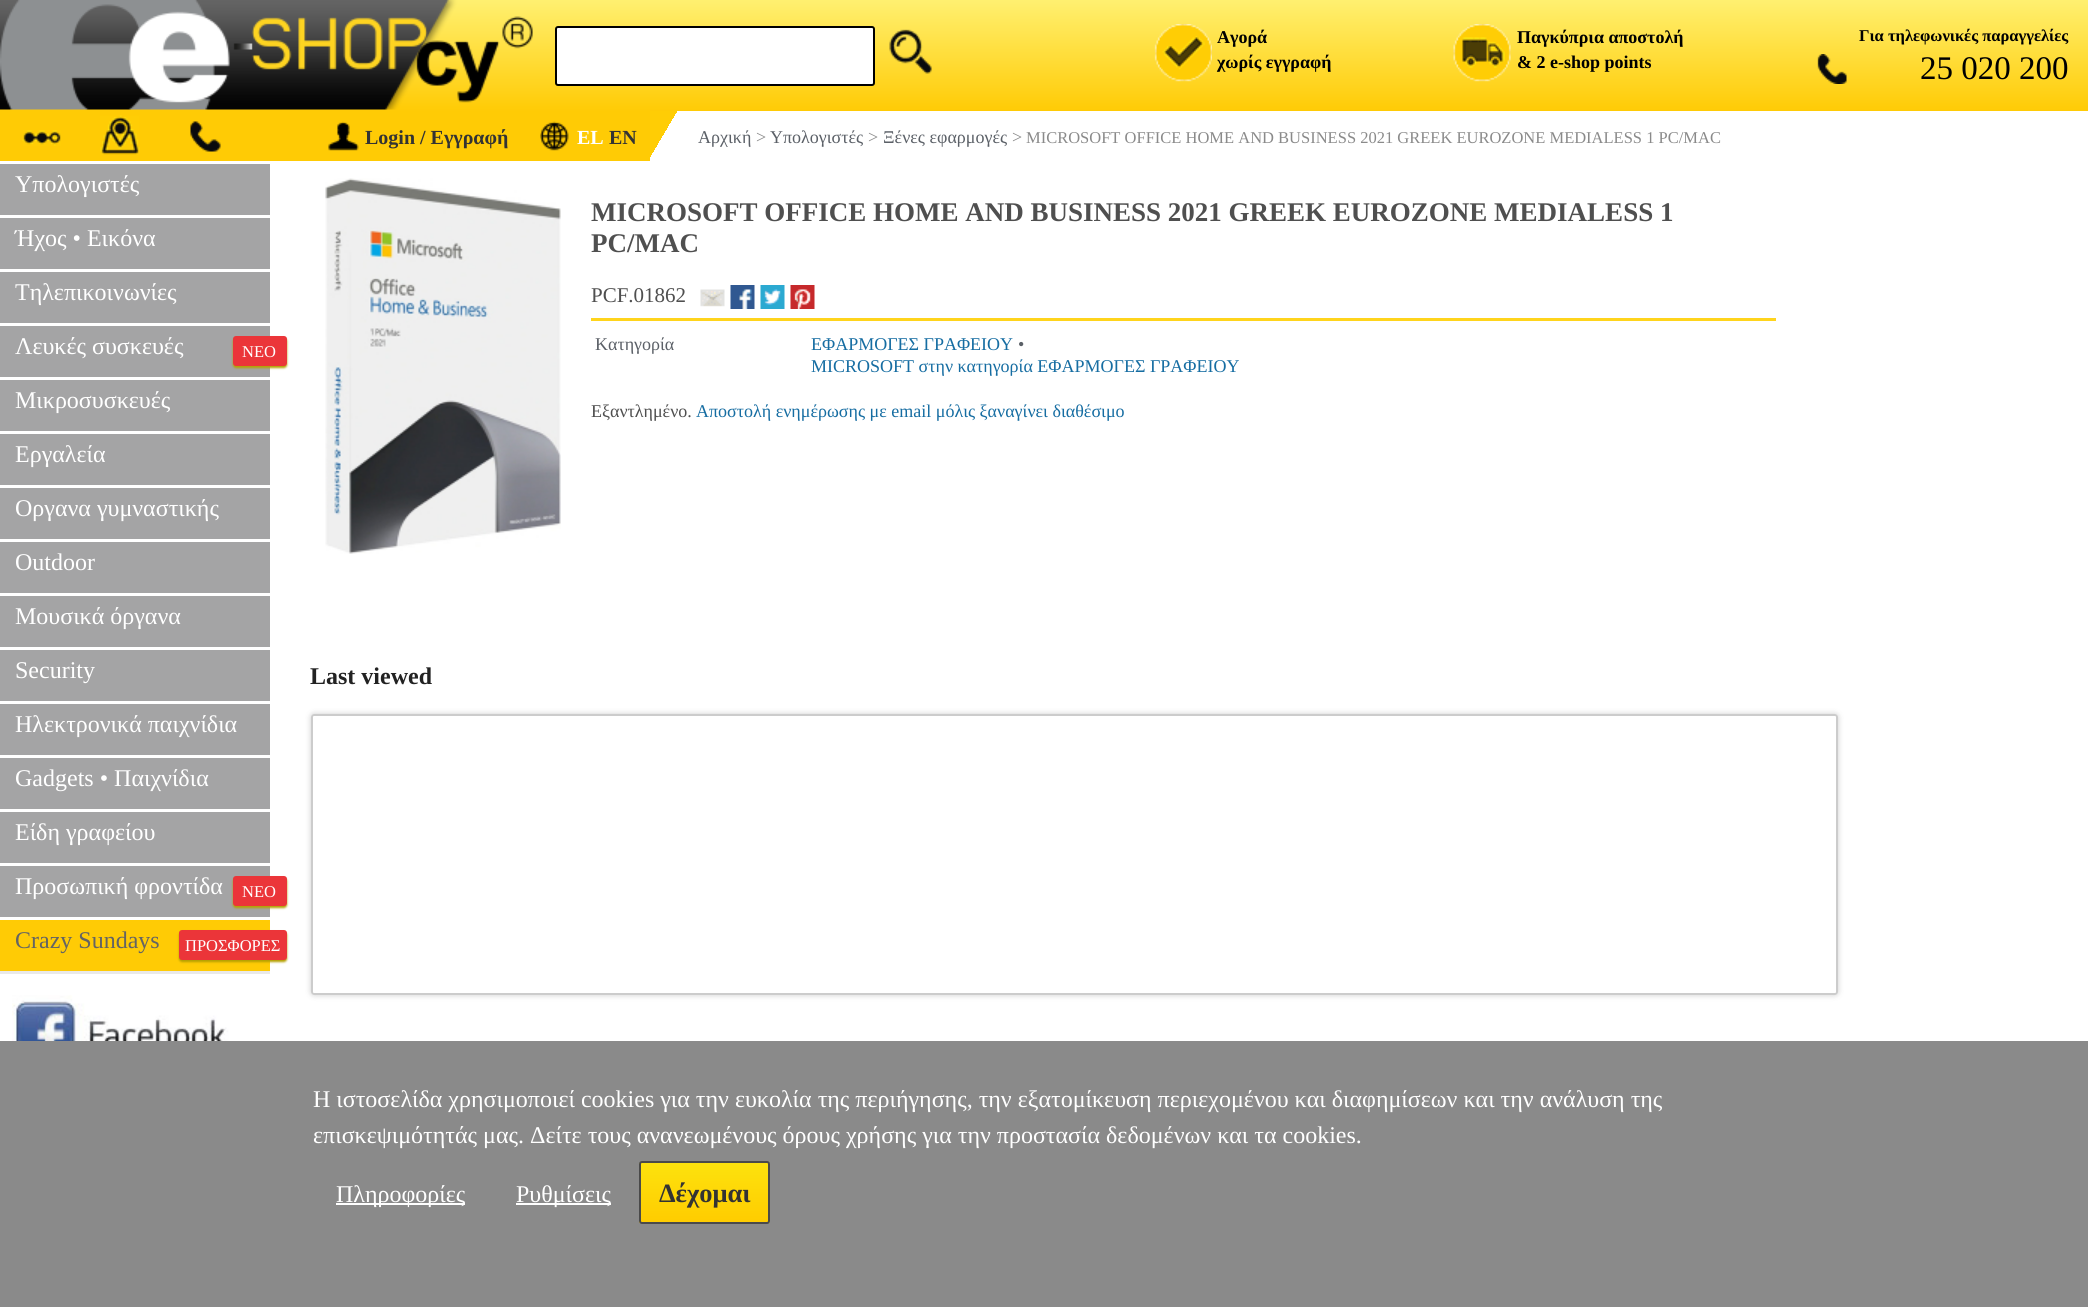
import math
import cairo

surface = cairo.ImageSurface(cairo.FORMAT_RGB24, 2088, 1307)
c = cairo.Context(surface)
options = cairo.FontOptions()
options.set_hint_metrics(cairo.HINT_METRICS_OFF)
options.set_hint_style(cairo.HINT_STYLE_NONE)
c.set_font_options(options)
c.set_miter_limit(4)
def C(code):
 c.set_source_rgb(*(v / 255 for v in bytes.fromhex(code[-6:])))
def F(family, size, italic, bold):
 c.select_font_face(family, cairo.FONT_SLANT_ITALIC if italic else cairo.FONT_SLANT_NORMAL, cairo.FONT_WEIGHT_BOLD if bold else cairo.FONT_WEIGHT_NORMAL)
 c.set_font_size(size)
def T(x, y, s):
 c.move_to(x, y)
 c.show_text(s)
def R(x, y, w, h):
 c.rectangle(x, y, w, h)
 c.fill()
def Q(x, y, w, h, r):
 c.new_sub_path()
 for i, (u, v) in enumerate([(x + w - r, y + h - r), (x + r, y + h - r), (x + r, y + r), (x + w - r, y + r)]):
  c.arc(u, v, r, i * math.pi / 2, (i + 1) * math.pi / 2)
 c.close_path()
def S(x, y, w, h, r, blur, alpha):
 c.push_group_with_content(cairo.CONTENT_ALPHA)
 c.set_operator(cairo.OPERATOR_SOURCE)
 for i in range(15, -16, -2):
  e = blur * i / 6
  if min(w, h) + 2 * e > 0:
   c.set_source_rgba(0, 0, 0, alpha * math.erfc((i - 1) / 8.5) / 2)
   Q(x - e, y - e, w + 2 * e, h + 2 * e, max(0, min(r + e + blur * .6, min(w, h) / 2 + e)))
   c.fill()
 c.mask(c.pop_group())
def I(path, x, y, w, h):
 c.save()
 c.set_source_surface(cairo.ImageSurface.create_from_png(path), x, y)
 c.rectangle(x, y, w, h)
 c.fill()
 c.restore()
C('ffffff')
c.paint()
gradient = cairo.LinearGradient(1044,111,1044,0)
gradient.add_color_stop_rgba(0,1,0.796,0.02,1)
gradient.add_color_stop_rgba(1,1,0.941,0.439,1)
c.set_source(gradient)
R(0,0,2088,111)
I('1.png',0,0,533,110)
C('ffffff')
Q(556,27,318,58,2)
c.fill_preserve()
C('000000')
c.stroke()
I('2.png',889,29,43,45)
I('3.png',1154,24,58,58)
F('Liberation Serif',18,0,1)
T(1217,43,'Αγορά')
T(1217,68,'χωρίς εγγραφή')
I('4.png',1453,24,58,58)
T(1517,43,'Παγκύπρια αποστολή')
T(1517,68,'& 2 e-shop points')
F('Liberation Serif',16.5,0,1)
T(1859,41,'Για τηλεφωνικές παραγγελίες')
I('5.png',1817,54,30,30)
F('Liberation Serif',33,0,0)
T(1920,79,'25 020 200')
C('ffcb05')
R(0,111,650,50)
I('6.png',22,130,39,16)
I('7.png',100,115,40,40)
I('8.png',190,121,31,31)
I('9.png',328,121,31,30)
F('Liberation Serif',20,0,1)
C('333333')
T(365,144,'Login / Εγγραφή')
I('10.png',540,121,29,30)
C('ffffff')
T(577,144,'EL')
C('333333')
T(609,144,'EN')
gradient = cairo.LinearGradient(640,122,686,149)
gradient.add_color_stop_rgba(.5,1,0.804,0.02,1)
gradient.add_color_stop_rgba(.5,1,0.804,0.02,0)
c.set_source(gradient)
R(650,111,27,46)
F('Liberation Serif',18,0,0)
C('5b6067')
T(698,143,'Αρχική')
C('8a8a8a')
T(756,143,'>')
C('5b6067')
T(770,143,'Υπολογιστές')
C('8a8a8a')
T(868,143,'>')
C('5b6067')
T(883,143,'Ξένες εφαρμογές')
C('8a8a8a')
T(1012,143,'>')
F('Liberation Serif',16.5,0,0)
T(1026,143,'MICROSOFT OFFICE HOME AND BUSINESS 2021 GREEK EUROZONE MEDIALESS 1 PC/MAC')
C('a4a4a5')
R(0,164,270,51)
F('Liberation Serif',24,0,0)
C('ffffff')
T(15,192,'Υπολογιστές')
C('a4a4a5')
R(0,218,270,51)
C('ffffff')
T(15,246,'Ήχος • Εικόνα')
C('a4a4a5')
R(0,272,270,51)
C('ffffff')
T(15,300,'Τηλεπικοινωνίες')
C('a4a4a5')
R(0,326,270,51)
C('ffffff')
T(15,354,'Λευκές συσκευές')
C('b5a001')
S(233,338,54,30,3,1,1)
C('eb3539')
Q(233,336,54,30,3)
c.fill()
F('Liberation Serif',16.5,0,0)
C('ffffff')
T(242,357,'ΝΕΟ')
C('a4a4a5')
R(0,380,270,51)
F('Liberation Serif',24,0,0)
C('ffffff')
T(15,408,'Μικροσυσκευές')
C('a4a4a5')
R(0,434,270,51)
C('ffffff')
T(15,462,'Εργαλεία')
C('a4a4a5')
R(0,488,270,51)
C('ffffff')
T(15,516,'Οργανα γυμναστικής')
C('a4a4a5')
R(0,542,270,51)
C('ffffff')
T(15,570,'Outdoor')
C('a4a4a5')
R(0,596,270,51)
C('ffffff')
T(15,624,'Μουσικά όργανα')
C('a4a4a5')
R(0,650,270,51)
C('ffffff')
T(15,678,'Security')
C('a4a4a5')
R(0,704,270,51)
C('ffffff')
T(15,732,'Ηλεκτρονικά παιχνίδια')
C('a4a4a5')
R(0,758,270,51)
C('ffffff')
T(15,786,'Gadgets • Παιχνίδια')
C('a4a4a5')
R(0,812,270,51)
C('ffffff')
T(15,840,'Είδη γραφείου')
C('a4a4a5')
R(0,866,270,51)
C('ffffff')
T(15,894,'Προσωπική φροντίδα')
C('b5a001')
S(233,878,54,30,3,1,1)
C('eb3539')
Q(233,876,54,30,3)
c.fill()
F('Liberation Serif',16.5,0,0)
C('ffffff')
T(242,897,'ΝΕΟ')
C('ffcb05')
R(0,920,270,51)
C('e9e9e9')
R(0,971,270,3)
F('Liberation Serif',24,0,0)
C('646464')
T(15,948,'Crazy Sundays')
C('b5a001')
S(179,932,108,30,3,1,1)
C('eb3539')
Q(179,930,108,30,3)
c.fill()
F('Liberation Serif',16.5,0,0)
C('ffffff')
T(185,951,'ΠΡΟΣΦΟΡΕΣ')
I('11.png',12,995,252,46)
I('12.png',325,178,236,376)
F('Liberation Serif',27,0,1)
C('4f4f4f')
T(591,221,'MICROSOFT OFFICE HOME AND BUSINESS 2021 GREEK EUROZONE MEDIALESS 1')
T(591,252,'PC/MAC')
F('Liberation Serif',21,0,0)
T(591,302,'PCF.01862')
I('13.png',700,289,25,18)
I('14.png',730,285,25,24)
I('15.png',760,285,25,24)
I('16.png',790,285,25,24)
C('ffd41c')
R(591,318,1185,3)
F('Liberation Serif',18,0,0)
C('5b6067')
T(595,350,'Κατηγορία')
C('166da2')
T(811,350,'ΕΦΑΡΜΟΓΕΣ ΓΡΑΦΕΙΟΥ')
C('5b6067')
T(1018,350,'•')
C('166da2')
T(811,372,'MICROSOFT στην κατηγορία ΕΦΑΡΜΟΓΕΣ ΓΡΑΦΕΙΟΥ')
C('4f4f4f')
T(591,417,'Εξαντλημένο.')
C('166da2')
T(696,417,'Αποστολή ενημέρωσης με email μόλις ξαναγίνει διαθέσιμο')
F('Liberation Serif',24,0,1)
C('222222')
T(310,684,'Last viewed')
c.save()
c.set_fill_rule(cairo.FILL_RULE_EVEN_ODD)
c.new_path()
c.move_to(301,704)
c.line_to(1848,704)
c.line_to(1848,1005)
c.line_to(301,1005)
c.close_path()
c.move_to(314,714)
c.line_to(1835,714)
c.curve_to(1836.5,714,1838,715.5,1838,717)
c.line_to(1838,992)
c.curve_to(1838,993.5,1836.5,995,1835,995)
c.line_to(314,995)
c.curve_to(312.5,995,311,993.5,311,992)
c.line_to(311,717)
c.curve_to(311,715.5,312.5,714,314,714)
c.close_path()
c.clip()
C('000000')
S(311,714,1527,281,3,3,.2)
c.restore()
Q(312,715,1525,279,2)
C('cccccc')
c.stroke()
C('8a8a8a')
R(0,1041,2088,266)
F('Liberation Serif',24,0,0)
C('ffffff')
T(313,1107,'Η ιστοσελίδα χρησιμοποιεί cookies για την ευκολία της περιήγησης, την εξατομίκευση περιεχομένου και διαφημίσεων και την ανάλυση της')
T(313,1143,'επισκεψιμότητάς μας. Δείτε τους ανανεωμένους όρους χρήσης για την προστασία δεδομένων και τα cookies.')
R(336,1203,129,2)
T(336,1202,'Πληροφορίες')
R(516,1203,95,2)
T(516,1202,'Ρυθμίσεις')
c.save()
Q(639,1161,131,63,3)
c.clip()
gradient = cairo.LinearGradient(704,1223,704,1163)
gradient.add_color_stop_rgba(0,1,0.8,0,1)
gradient.add_color_stop_rgba(1,0.992,0.886,0.051,1)
c.set_source(gradient)
R(639,1163,131,60)
c.restore()
Q(640,1162,129,61,2)
C('4a4a4a')
c.stroke()
F('Liberation Serif',26.5,0,1)
C('333333')
T(659,1202,'Δέχομαι')
surface.write_to_png('o.png')
